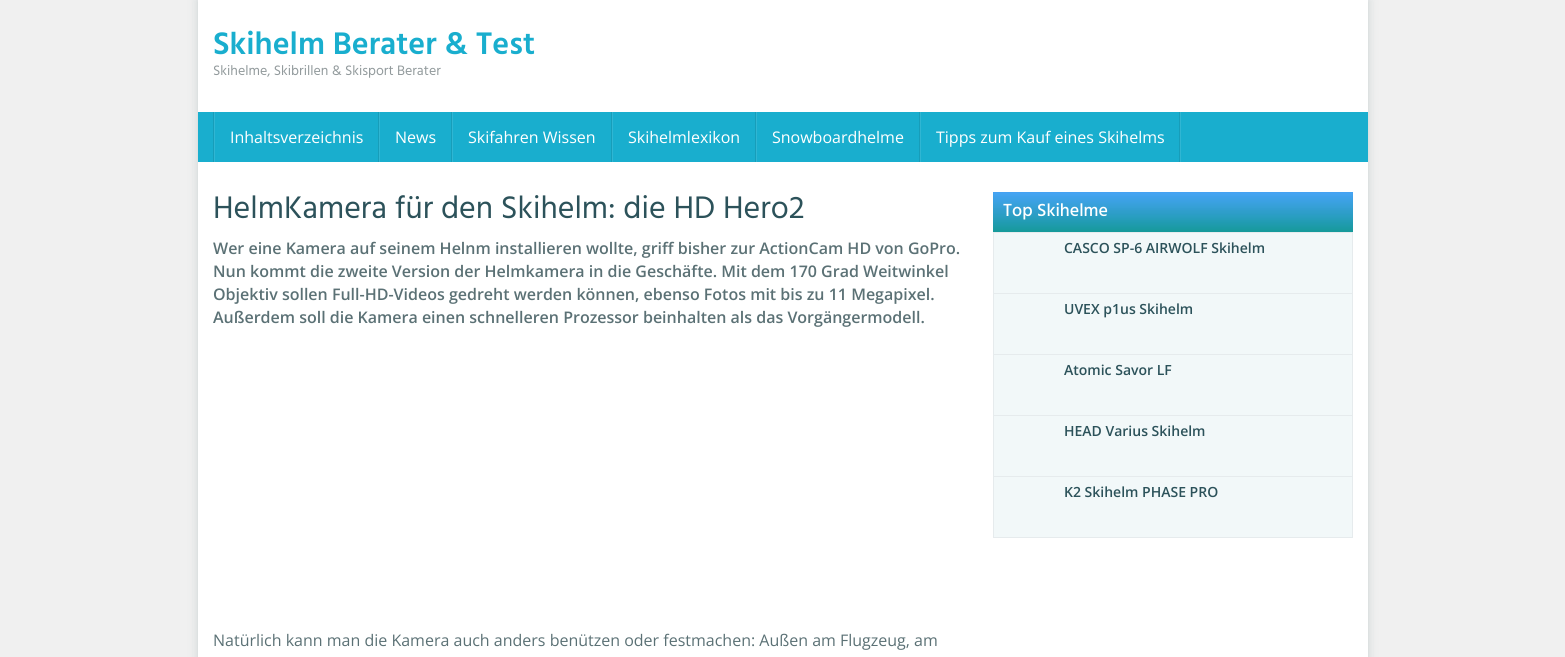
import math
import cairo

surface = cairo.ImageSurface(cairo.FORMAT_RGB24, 1565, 657)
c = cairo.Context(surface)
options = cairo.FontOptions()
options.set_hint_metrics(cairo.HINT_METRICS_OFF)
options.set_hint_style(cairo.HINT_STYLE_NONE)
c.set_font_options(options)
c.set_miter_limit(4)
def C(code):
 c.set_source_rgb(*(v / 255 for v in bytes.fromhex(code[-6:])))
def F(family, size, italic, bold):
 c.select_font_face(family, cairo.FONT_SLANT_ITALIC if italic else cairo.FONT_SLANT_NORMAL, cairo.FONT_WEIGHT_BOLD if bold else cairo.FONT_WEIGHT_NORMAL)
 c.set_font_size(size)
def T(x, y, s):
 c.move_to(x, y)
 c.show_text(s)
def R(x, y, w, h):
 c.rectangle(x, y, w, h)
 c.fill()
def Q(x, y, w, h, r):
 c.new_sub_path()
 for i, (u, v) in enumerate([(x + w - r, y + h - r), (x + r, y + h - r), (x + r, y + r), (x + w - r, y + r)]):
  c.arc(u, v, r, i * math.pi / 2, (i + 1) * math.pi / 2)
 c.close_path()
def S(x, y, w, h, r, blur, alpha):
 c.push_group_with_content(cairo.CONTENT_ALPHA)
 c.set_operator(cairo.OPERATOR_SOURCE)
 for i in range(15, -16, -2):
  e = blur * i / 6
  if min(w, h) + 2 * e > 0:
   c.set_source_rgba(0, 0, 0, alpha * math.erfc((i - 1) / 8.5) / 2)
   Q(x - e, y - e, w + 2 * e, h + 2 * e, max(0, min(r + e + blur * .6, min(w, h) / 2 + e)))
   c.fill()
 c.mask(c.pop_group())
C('f0f0f0')
c.paint()
C('2c525a')
S(198,0,1170,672,0,5,.2)
C('ffffff')
R(198,0,1170,657)
F('Hind SemiBold',32,0,0)
C('19aece')
T(213,54,'Skihelm Berater & Test')
F('Hind',14,0,0)
C('929a9c')
T(213,75,'Skihelme, Skibrillen & Skisport Berater')
C('19aece')
R(198,112,1170,50)
C('30b6d3')
R(1180,112,1,50)
C('179db9')
R(213,112,1,50)
R(378,112,1,50)
C('30b6d3')
R(214,112,1,50)
F('Open Sans',16,0,0)
C('ffffff')
T(230,143,'Inhaltsverzeichnis')
C('179db9')
R(451,112,1,50)
C('30b6d3')
R(379,112,1,50)
C('ffffff')
T(395,143,'News')
C('179db9')
R(611,112,1,50)
C('30b6d3')
R(452,112,1,50)
C('ffffff')
T(468,143,'Skifahren Wissen')
C('179db9')
R(755,112,1,50)
C('30b6d3')
R(612,112,1,50)
C('ffffff')
T(628,143,'Skihelmlexikon')
C('179db9')
R(919,112,1,50)
C('30b6d3')
R(756,112,1,50)
C('ffffff')
T(772,143,'Snowboardhelme')
C('179db9')
R(1179,112,1,50)
C('30b6d3')
R(920,112,1,50)
C('ffffff')
T(936,143,'Tipps zum Kauf eines Skihelms')
F('Hind',32,0,0)
C('2c525a')
T(213,218,'HelmKamera für den Skihelm: die HD Hero2')
F('Open Sans SemiBold',16,0,0)
C('5b7175')
T(213,254,'Wer eine Kamera auf seinem Helnm installieren wollte, griff bisher zur ActionCam HD von GoPro.')
T(213,277,'Nun kommt die zweite Version der Helmkamera in die Geschäfte. Mit dem 170 Grad Weitwinkel')
T(213,300,'Objektiv sollen Full-HD-Videos gedreht werden können, ebenso Fotos mit bis zu 11 Megapixel.')
T(213,323,'Außerdem soll die Kamera einen schnelleren Prozessor beinhalten als das Vorgängermodell.')
F('Open Sans',16,0,0)
T(213,646,'Natürlich kann man die Kamera auch anders benützen oder festmachen: Außen am Flugzeug, am')
C('f2f8f9')
c.rectangle(993.5,192.5,359,345)
c.fill_preserve()
C('e6ebed')
c.set_line_width(1)
c.stroke()
gradient = cairo.LinearGradient(1173,192,1173,232)
gradient.add_color_stop_rgba(0,0.141,0.576,0.957,.83)
gradient.add_color_stop_rgba(1,0.082,0.6,0.6,1)
c.set_source(gradient)
R(993,192,360,40)
F('Hind Medium',18,0,0)
C('ffffff')
T(1003,216,'Top Skihelme')
C('e6ebed')
R(994,232,358,1)
F('Open Sans SemiBold',14,0,0)
C('2c525a')
T(1064,253,'CASCO SP-6 AIRWOLF Skihelm')
C('e6ebed')
R(994,293,358,1)
C('2c525a')
T(1064,314,'UVEX p1us Skihelm')
C('e6ebed')
R(994,354,358,1)
C('2c525a')
T(1064,375,'Atomic Savor LF')
C('e6ebed')
R(994,415,358,1)
C('2c525a')
T(1064,436,'HEAD Varius Skihelm')
C('e6ebed')
R(994,476,358,1)
C('2c525a')
T(1064,497,'K2 Skihelm PHASE PRO')
surface.write_to_png('o.png')
